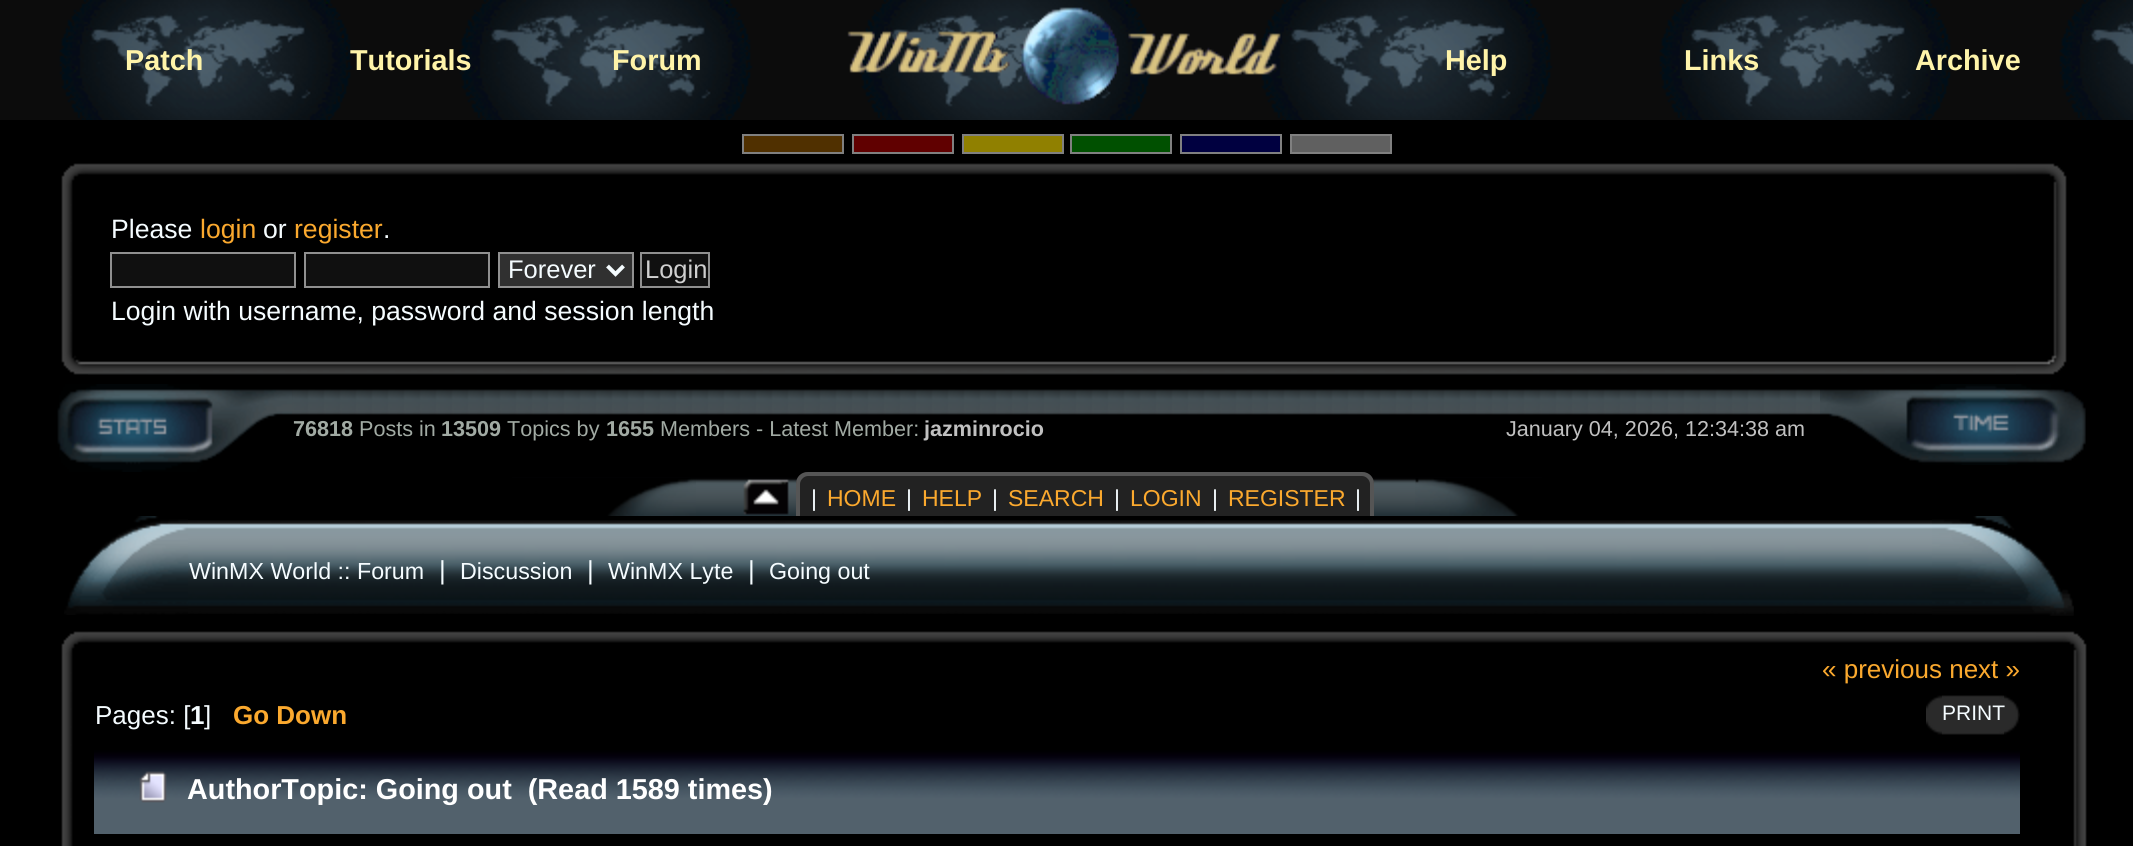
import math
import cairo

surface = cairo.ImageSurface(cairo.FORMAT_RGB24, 2133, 846)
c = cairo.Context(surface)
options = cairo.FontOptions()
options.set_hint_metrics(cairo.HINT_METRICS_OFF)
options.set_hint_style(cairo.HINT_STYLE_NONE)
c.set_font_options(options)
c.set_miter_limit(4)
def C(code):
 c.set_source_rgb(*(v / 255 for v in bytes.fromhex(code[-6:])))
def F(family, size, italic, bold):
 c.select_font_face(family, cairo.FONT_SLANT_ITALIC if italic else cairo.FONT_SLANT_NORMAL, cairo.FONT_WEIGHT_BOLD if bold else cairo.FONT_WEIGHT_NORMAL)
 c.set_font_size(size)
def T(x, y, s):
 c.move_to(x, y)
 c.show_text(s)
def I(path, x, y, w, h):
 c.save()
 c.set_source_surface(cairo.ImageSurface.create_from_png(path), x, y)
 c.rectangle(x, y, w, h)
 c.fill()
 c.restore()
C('000000')
c.paint()
I('1.png',0,0,2133,120)
F('Liberation Sans',28.8,0,1)
C('fff4a9')
T(125,70,'Patch')
T(350,70,'Tutorials')
T(612,70,'Forum')
I('2.png',847,7,434,98)
T(1445,70,'Help')
T(1684,70,'Links')
T(1915,70,'Archive')
C('503000')
c.rectangle(743,135,100,18)
c.fill_preserve()
C('808080')
c.stroke()
C('600000')
c.rectangle(853,135,100,18)
c.fill_preserve()
C('808080')
c.stroke()
C('908000')
c.rectangle(963,135,100,18)
c.fill_preserve()
C('808080')
c.stroke()
C('005000')
c.rectangle(1071,135,100,18)
c.fill_preserve()
C('808080')
c.stroke()
C('000040')
c.rectangle(1181,135,100,18)
c.fill_preserve()
C('808080')
c.stroke()
C('606060')
c.rectangle(1291,135,100,18)
c.fill_preserve()
C('808080')
c.stroke()
I('3.png',61,163,27,25)
I('4.png',88,163,1928,12)
I('5.png',2016,163,51,25)
I('6.png',61,188,12,164)
F('Liberation Sans',26.6,0,0)
C('f5fcff')
T(111,238,'Please')
C('fba92e')
T(200,238,'login')
C('f5fcff')
T(263,238,'or')
C('fba92e')
T(294,238,'register')
C('f5fcff')
T(383,238,'.')
C('101010')
c.rectangle(111,253,184,34)
c.fill_preserve()
C('909090')
c.stroke()
C('101010')
c.rectangle(305,253,184,34)
c.fill_preserve()
C('909090')
c.stroke()
C('303030')
c.rectangle(499,253,134,34)
c.fill_preserve()
C('909090')
c.stroke()
c.new_path()
c.move_to(607.5,266)
c.line_to(615.5,274)
c.line_to(623.5,266)
C('f5fcff')
c.set_line_width(4)
c.stroke()
F('Liberation Sans',25.5,0,0)
T(508,278,'Forever')
C('101010')
c.rectangle(641,253,68,34)
c.fill_preserve()
C('909090')
c.set_line_width(2)
c.stroke()
C('d0d0d0')
T(645,278,'Login')
F('Liberation Sans',26.6,0,0)
C('f5fcff')
T(111,320,'Login with username, password and session length')
I('7.png',2053,188,14,164)
I('8.png',61,352,27,23)
I('9.png',88,361,1928,14)
I('10.png',2016,352,51,23)
I('11.png',57,384,235,88)
I('12.png',292,389,1528,26)
F('Liberation Sans',21.6,0,1)
C('a1aaa3')
T(293,436,'76818')
F('Liberation Sans',21.6,0,0)
T(359,436,'Posts in')
F('Liberation Sans',21.6,0,1)
T(441,436,'13509')
F('Liberation Sans',21.6,0,0)
T(507,436,'Topics by')
F('Liberation Sans',21.6,0,1)
T(606,436,'1655')
F('Liberation Sans',21.6,0,0)
T(660,436,'Members - Latest Member:')
F('Liberation Sans',21.6,0,1)
C('c0c0c0')
T(924,436,'jazminrocio')
F('Liberation Sans',21.6,0,0)
T(1506,436,'January 04, 2026, 12:34:38 am')
I('13.png',1820,384,266,81)
I('14.png',512,472,1030,44)
I('15.png',512,478,184,38)
I('16.png',743,479,46,36)
C('222222')
c.new_path()
c.move_to(808,472)
c.line_to(1362,472)
c.curve_to(1368.5,472,1374,477.5,1374,484)
c.line_to(1374,516)
c.line_to(796,516)
c.line_to(796,484)
c.curve_to(796,477.5,801.5,472,808,472)
c.close_path()
c.fill()
C('555555')
c.set_fill_rule(cairo.FILL_RULE_EVEN_ODD)
c.new_path()
c.move_to(808,472)
c.line_to(1362,472)
c.curve_to(1369,472,1374,477,1374,484)
c.line_to(1374,516)
c.line_to(796,516)
c.line_to(796,484)
c.curve_to(796,477,801,472,808,472)
c.close_path()
c.move_to(808,476)
c.line_to(1362,476)
c.curve_to(1366,476,1370,480,1370,484)
c.line_to(1370,516)
c.line_to(800,516)
c.line_to(800,484)
c.curve_to(800,480,804,476,808,476)
c.close_path()
c.fill()
F('Liberation Sans',23,0,0)
C('f5fcff')
T(811,506,'|')
C('fba92e')
T(827,506,'HOME')
C('f5fcff')
T(906,506,'|')
C('fba92e')
T(922,506,'HELP')
C('f5fcff')
T(992,506,'|')
C('fba92e')
T(1008,506,'SEARCH')
C('f5fcff')
T(1114,506,'|')
C('fba92e')
T(1130,506,'LOGIN')
C('f5fcff')
T(1212,506,'|')
C('fba92e')
T(1228,506,'REGISTER')
C('f5fcff')
T(1355,506,'|')
I('17.png',1415,478,127,38)
I('18.png',64,516,124,99)
I('19.png',188,520,1744,94)
F('Liberation Sans',23.25,0,0)
T(189,579,'WinMX World :: Forum')
F('Liberation Sans',26,0,0)
T(439,579,'|')
F('Liberation Sans',23.25,0,0)
T(460,579,'Discussion')
F('Liberation Sans',26,0,0)
T(587,579,'|')
F('Liberation Sans',23.25,0,0)
T(608,579,'WinMX Lyte')
F('Liberation Sans',26,0,0)
T(748,579,'|')
F('Liberation Sans',23.25,0,0)
T(769,579,'Going out')
I('20.png',1932,516,142,100)
I('3.png',61,631,27,25)
I('21.png',88,631,1948,12)
I('5.png',2036,631,51,25)
I('22.png',61,656,12,190)
F('Liberation Sans',26,0,0)
C('fba92e')
T(1822,678,'« previous next »')
C('f5fcff')
T(95,724,'Pages: [')
F('Liberation Sans',26,0,1)
T(190,724,'1')
F('Liberation Sans',26,0,0)
T(204,724,']')
F('Liberation Sans',26,0,1)
C('fba92e')
T(233,724,'Go Down')
I('23.png',1926,695,78,40)
I('24.png',1942,695,78,40)
F('Liberation Sans',21,0,0)
C('f5fcff')
T(1942,720,'PRINT')
I('25.png',94,750,1926,84)
I('26.png',112,750,1908,78)
I('27.png',139,771,28,32)
F('Liberation Sans',28.8,0,1)
C('ffffff')
T(187,799,'AuthorTopic: Going out  (Read 1589 times)')
I('28.png',2073,656,14,190)
surface.write_to_png('o.png')
